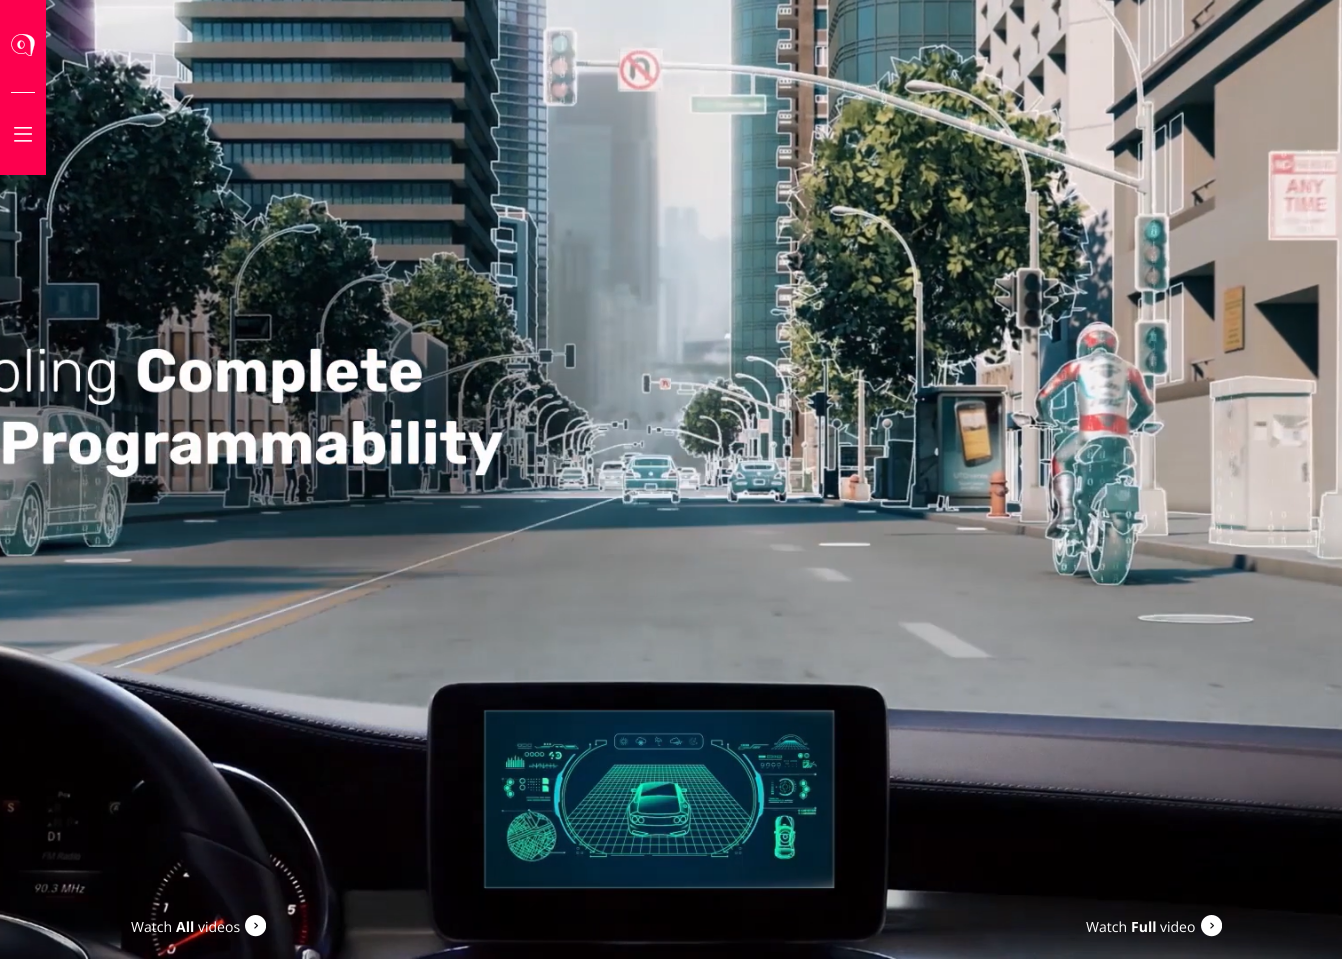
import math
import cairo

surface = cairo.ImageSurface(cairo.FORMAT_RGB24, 1342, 959)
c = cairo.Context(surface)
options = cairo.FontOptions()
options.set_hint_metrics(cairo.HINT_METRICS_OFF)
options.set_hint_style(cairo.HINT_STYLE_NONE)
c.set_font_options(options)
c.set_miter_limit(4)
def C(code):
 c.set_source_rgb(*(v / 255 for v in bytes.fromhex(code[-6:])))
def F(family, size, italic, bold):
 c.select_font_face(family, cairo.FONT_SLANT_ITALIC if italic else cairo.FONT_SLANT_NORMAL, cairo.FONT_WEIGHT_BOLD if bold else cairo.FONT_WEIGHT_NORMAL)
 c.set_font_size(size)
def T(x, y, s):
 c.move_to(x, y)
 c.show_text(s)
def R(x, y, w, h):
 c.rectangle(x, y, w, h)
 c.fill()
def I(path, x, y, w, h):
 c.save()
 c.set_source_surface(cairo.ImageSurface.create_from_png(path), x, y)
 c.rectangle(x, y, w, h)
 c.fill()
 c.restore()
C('ffffff')
c.paint()
I('3.png',0,0,1342,959)
C('fd004e')
R(0,0,46,175)
I('1.png',11,34,24,22)
C('ffffff')
R(11,92,24,1)
I('2.png',14,127,18,15)
F('Open Sans',14,0,0)
T(131,932,'Watch')
F('Open Sans',14,0,1)
T(176,932,'All')
F('Open Sans',14,0,0)
T(198,932,'videos')
I('4.png',245,915,21,22)
T(1086,932,'Watch')
F('Open Sans',14,0,1)
T(1131,932,'Full')
F('Open Sans',14,0,0)
T(1160,932,'video')
I('5.png',1201,915,21,22)
surface.write_to_png('o.png')
